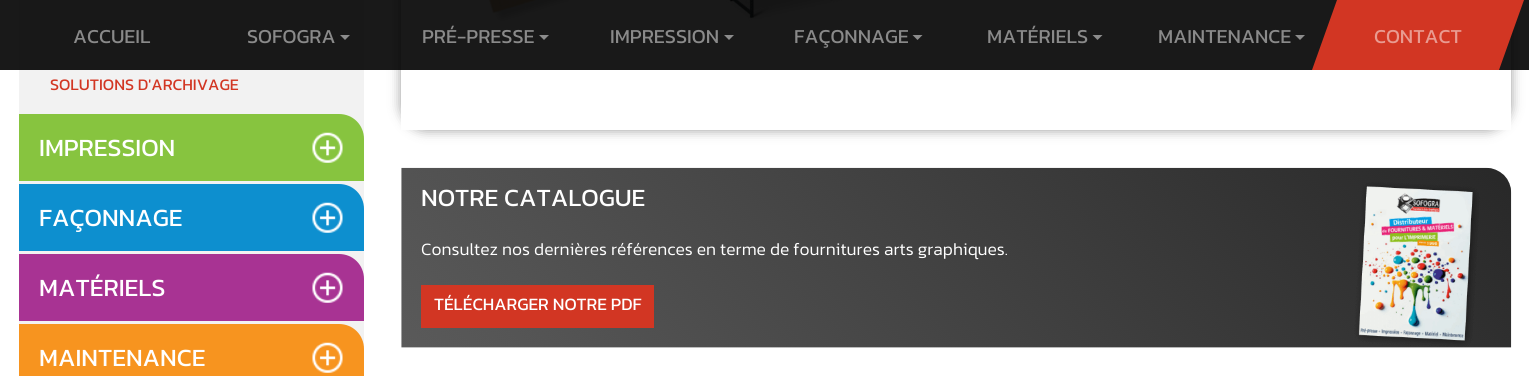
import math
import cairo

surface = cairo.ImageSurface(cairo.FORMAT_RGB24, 1529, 376)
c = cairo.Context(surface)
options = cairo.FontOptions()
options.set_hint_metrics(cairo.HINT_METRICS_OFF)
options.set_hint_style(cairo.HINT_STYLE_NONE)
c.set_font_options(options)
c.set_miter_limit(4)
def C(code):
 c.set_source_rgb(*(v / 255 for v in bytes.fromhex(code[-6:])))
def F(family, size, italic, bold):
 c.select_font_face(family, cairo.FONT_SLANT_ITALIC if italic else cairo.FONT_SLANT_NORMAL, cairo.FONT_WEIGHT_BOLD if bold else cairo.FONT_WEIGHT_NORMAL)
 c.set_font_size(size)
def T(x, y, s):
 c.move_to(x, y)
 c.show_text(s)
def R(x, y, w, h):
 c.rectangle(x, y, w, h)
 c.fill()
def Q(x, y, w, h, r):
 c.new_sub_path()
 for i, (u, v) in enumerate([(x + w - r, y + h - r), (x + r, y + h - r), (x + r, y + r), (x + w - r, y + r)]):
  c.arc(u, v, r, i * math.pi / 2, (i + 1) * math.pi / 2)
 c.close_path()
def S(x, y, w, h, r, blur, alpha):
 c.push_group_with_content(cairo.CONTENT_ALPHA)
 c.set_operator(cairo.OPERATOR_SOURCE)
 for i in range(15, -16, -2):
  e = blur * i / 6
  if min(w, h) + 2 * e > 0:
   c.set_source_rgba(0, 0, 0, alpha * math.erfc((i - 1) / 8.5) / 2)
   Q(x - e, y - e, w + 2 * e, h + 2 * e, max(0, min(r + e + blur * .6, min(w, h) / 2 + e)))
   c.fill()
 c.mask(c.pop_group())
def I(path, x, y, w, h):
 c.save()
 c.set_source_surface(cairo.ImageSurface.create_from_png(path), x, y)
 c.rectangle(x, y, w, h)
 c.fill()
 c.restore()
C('ffffff')
c.paint()
C('f2f2f2')
R(19,0,345,349)
C('000000')
S(401,-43,1110,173,25,6,.4)
C('ffffff')
R(401,0,1110,130)
I('5.png',488,0,83,21)
I('6.png',726,0,118,21)
c.set_source_rgba(0,0,0,0.9)
R(0,0,1529,70)
F('Kanit',20,0,0)
C('8a8a8a')
T(73,43,'ACCUEIL')
T(247,43,'SOFOGRA')
C('8c8c8c')
c.new_path()
c.move_to(340,35)
c.line_to(350,35)
c.line_to(345,40)
c.close_path()
c.fill()
C('8a8a8a')
T(422,43,'PRÉ-PRESSE')
C('8c8c8c')
c.new_path()
c.move_to(539,35)
c.line_to(549,35)
c.line_to(544,40)
c.close_path()
c.fill()
C('8a8a8a')
T(610,43,'IMPRESSION')
C('8c8c8c')
c.new_path()
c.move_to(724,35)
c.line_to(734,35)
c.line_to(729,40)
c.close_path()
c.fill()
C('8a8a8a')
T(794,43,'FAÇONNAGE')
C('8c8c8c')
c.new_path()
c.move_to(912.5,35)
c.line_to(922.5,35)
c.line_to(917.5,40)
c.close_path()
c.fill()
C('8a8a8a')
T(987,43,'MATÉRIELS')
C('8c8c8c')
c.new_path()
c.move_to(1092.5,35)
c.line_to(1102.5,35)
c.line_to(1097.5,40)
c.close_path()
c.fill()
C('8a8a8a')
T(1158,43,'MAINTENANCE')
C('8c8c8c')
c.new_path()
c.move_to(1295,35)
c.line_to(1305,35)
c.line_to(1300,40)
c.close_path()
c.fill()
C('d23623')
c.new_path()
c.move_to(1337,0)
c.line_to(1524,0)
c.line_to(1499,70)
c.line_to(1312,70)
c.close_path()
c.fill()
C('e99b91')
T(1374,43,'CONTACT')
F('Kanit',16.25,0,0)
C('d23623')
T(50,90,'SOLUTIONS D\'ARCHIVAGE')
C('87c43f')
c.new_path()
c.move_to(19,114)
c.line_to(339,114)
c.curve_to(353,114,364,125,364,139)
c.line_to(364,181)
c.line_to(19,181)
c.close_path()
c.fill()
F('Kanit',25,0,0)
C('ffffff')
T(39,156,'IMPRESSION')
I('1.png',312,132,31,31)
C('0d8fcf')
c.new_path()
c.move_to(19,184)
c.line_to(339,184)
c.curve_to(353,184,364,195,364,209)
c.line_to(364,251)
c.line_to(19,251)
c.close_path()
c.fill()
C('ffffff')
T(39,226,'FAÇONNAGE')
I('2.png',312,202,31,31)
C('a83393')
c.new_path()
c.move_to(19,254)
c.line_to(339,254)
c.curve_to(353,254,364,265,364,279)
c.line_to(364,321)
c.line_to(19,321)
c.close_path()
c.fill()
C('ffffff')
T(39,296,'MATÉRIELS')
I('3.png',312,272,31,31)
C('f7941f')
c.new_path()
c.move_to(19,324)
c.line_to(339,324)
c.curve_to(353,324,364,335,364,349)
c.line_to(364,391)
c.line_to(19,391)
c.close_path()
c.fill()
C('ffffff')
T(39,366,'MAINTENANCE')
I('4.png',312,342,31,31)
I('7.png',401,167,1111,181)
T(421,206,'NOTRE CATALOGUE')
F('Kanit Light',17.5,0,0)
T(421,255,'Consultez nos dernières références en terme de fournitures arts graphiques.')
C('d23623')
R(421,285,233,43)
F('Kanit',17.5,0,0)
C('ffffff')
T(434,310,'TÉLÉCHARGER NOTRE PDF')
surface.write_to_png('o.png')
